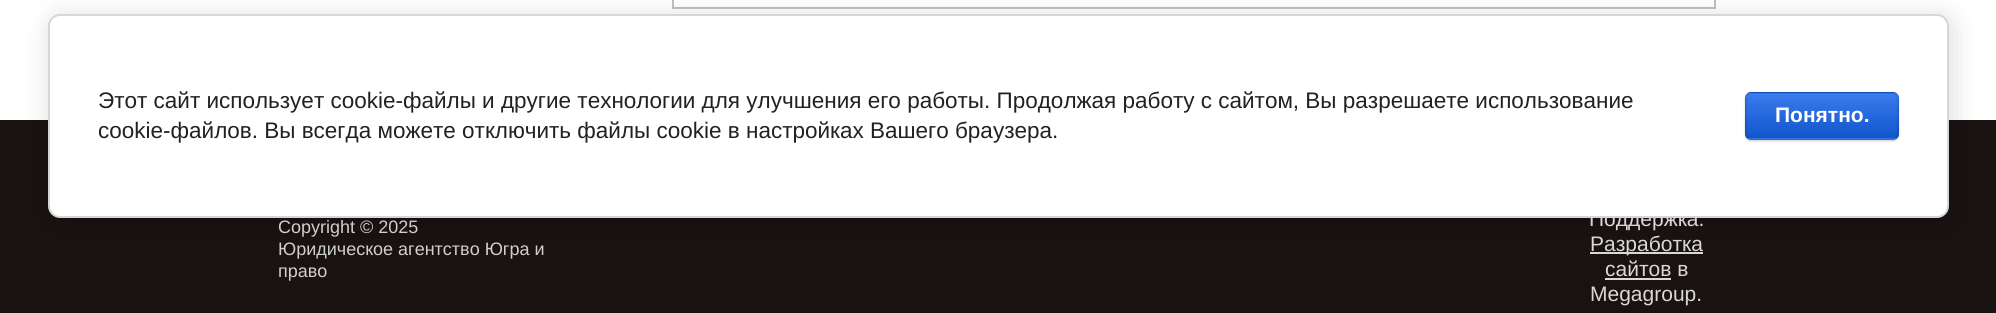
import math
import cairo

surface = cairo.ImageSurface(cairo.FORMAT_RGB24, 1996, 313)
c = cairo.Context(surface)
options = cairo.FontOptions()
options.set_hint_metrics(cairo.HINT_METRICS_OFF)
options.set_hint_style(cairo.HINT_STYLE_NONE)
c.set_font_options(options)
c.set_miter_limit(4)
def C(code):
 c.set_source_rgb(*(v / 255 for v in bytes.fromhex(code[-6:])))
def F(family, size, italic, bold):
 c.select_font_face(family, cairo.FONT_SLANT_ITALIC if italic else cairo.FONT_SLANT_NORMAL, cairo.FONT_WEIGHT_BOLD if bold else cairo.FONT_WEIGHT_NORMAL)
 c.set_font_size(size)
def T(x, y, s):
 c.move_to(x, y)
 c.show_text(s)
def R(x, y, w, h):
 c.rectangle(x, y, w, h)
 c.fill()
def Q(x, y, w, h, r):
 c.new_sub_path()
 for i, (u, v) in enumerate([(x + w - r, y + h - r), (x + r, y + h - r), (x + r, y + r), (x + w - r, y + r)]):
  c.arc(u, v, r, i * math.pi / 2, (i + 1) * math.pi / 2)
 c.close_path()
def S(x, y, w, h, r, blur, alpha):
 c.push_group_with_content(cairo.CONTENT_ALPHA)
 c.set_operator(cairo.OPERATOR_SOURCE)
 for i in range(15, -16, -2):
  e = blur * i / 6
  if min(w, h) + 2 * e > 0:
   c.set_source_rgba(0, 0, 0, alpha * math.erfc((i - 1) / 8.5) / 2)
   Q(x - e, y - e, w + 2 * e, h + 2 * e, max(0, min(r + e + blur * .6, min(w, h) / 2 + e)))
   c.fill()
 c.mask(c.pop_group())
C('ffffff')
c.paint()
c.rectangle(673,-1,1042,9)
C('c0c0c0')
c.stroke()
C('1a1111')
R(0,120,1996,193)
C('d8d8d8')
R(1590,252,113,2)
C('000000')
S(51,17,1901,204,12,13.5,.14)
F('Liberation Sans',21,0,0)
C('d8d8d8')
T(1589,226,'Поддержка.')
C('ffffff')
Q(49,15,1899,202,11)
c.fill_preserve()
C('d6d6d6')
c.stroke()
F('Liberation Sans',22.5,0,0)
C('212121')
T(98,108,'Этот сайт использует cookie-файлы и другие технологии для улучшения его работы. Продолжая работу с сайтом, Вы разрешаете использование')
T(98,138,'cookie-файлов. Вы всегда можете отключить файлы cookie в настройках Вашего браузера.')
C('000000')
S(1745,93,154,48,6,1,.2)
c.save()
Q(1745,92,154,48,6)
c.clip()
gradient = cairo.LinearGradient(1822,48,1822,93)
gradient.add_color_stop_rgba(0,0.231,0.486,0.937,1)
gradient.add_color_stop_rgba(1,0.067,0.333,0.8,1)
c.set_source(gradient)
R(1745,92,154,1)
gradient = cairo.LinearGradient(1822,93,1822,138)
gradient.add_color_stop_rgba(0,0.231,0.486,0.937,1)
gradient.add_color_stop_rgba(1,0.067,0.333,0.8,1)
c.set_source(gradient)
R(1745,93,154,45)
gradient = cairo.LinearGradient(1822,138,1822,183)
gradient.add_color_stop_rgba(0,0.231,0.486,0.937,1)
gradient.add_color_stop_rgba(1,0.067,0.333,0.8,1)
c.set_source(gradient)
R(1745,138,154,2)
c.restore()
Q(1746,93,152,46,5)
c.set_source_rgba(0,0,0,0.1)
c.stroke()
F('Liberation Sans',21,0,1)
C('ffffff')
T(1775,122,'Понятно.')
F('Liberation Sans',18,0,0)
C('cfcfcf')
T(278,233,'Copyright © 2025')
T(278,255,'Юридическое агентство Югра и')
T(278,277,'право')
F('Liberation Sans',21,0,0)
C('d8d8d8')
T(1590,251,'Разработка')
T(1605,276,'сайтов в')
R(1605,278,66,2)
T(1590,301,'Megagroup.')
surface.write_to_png('o.png')
